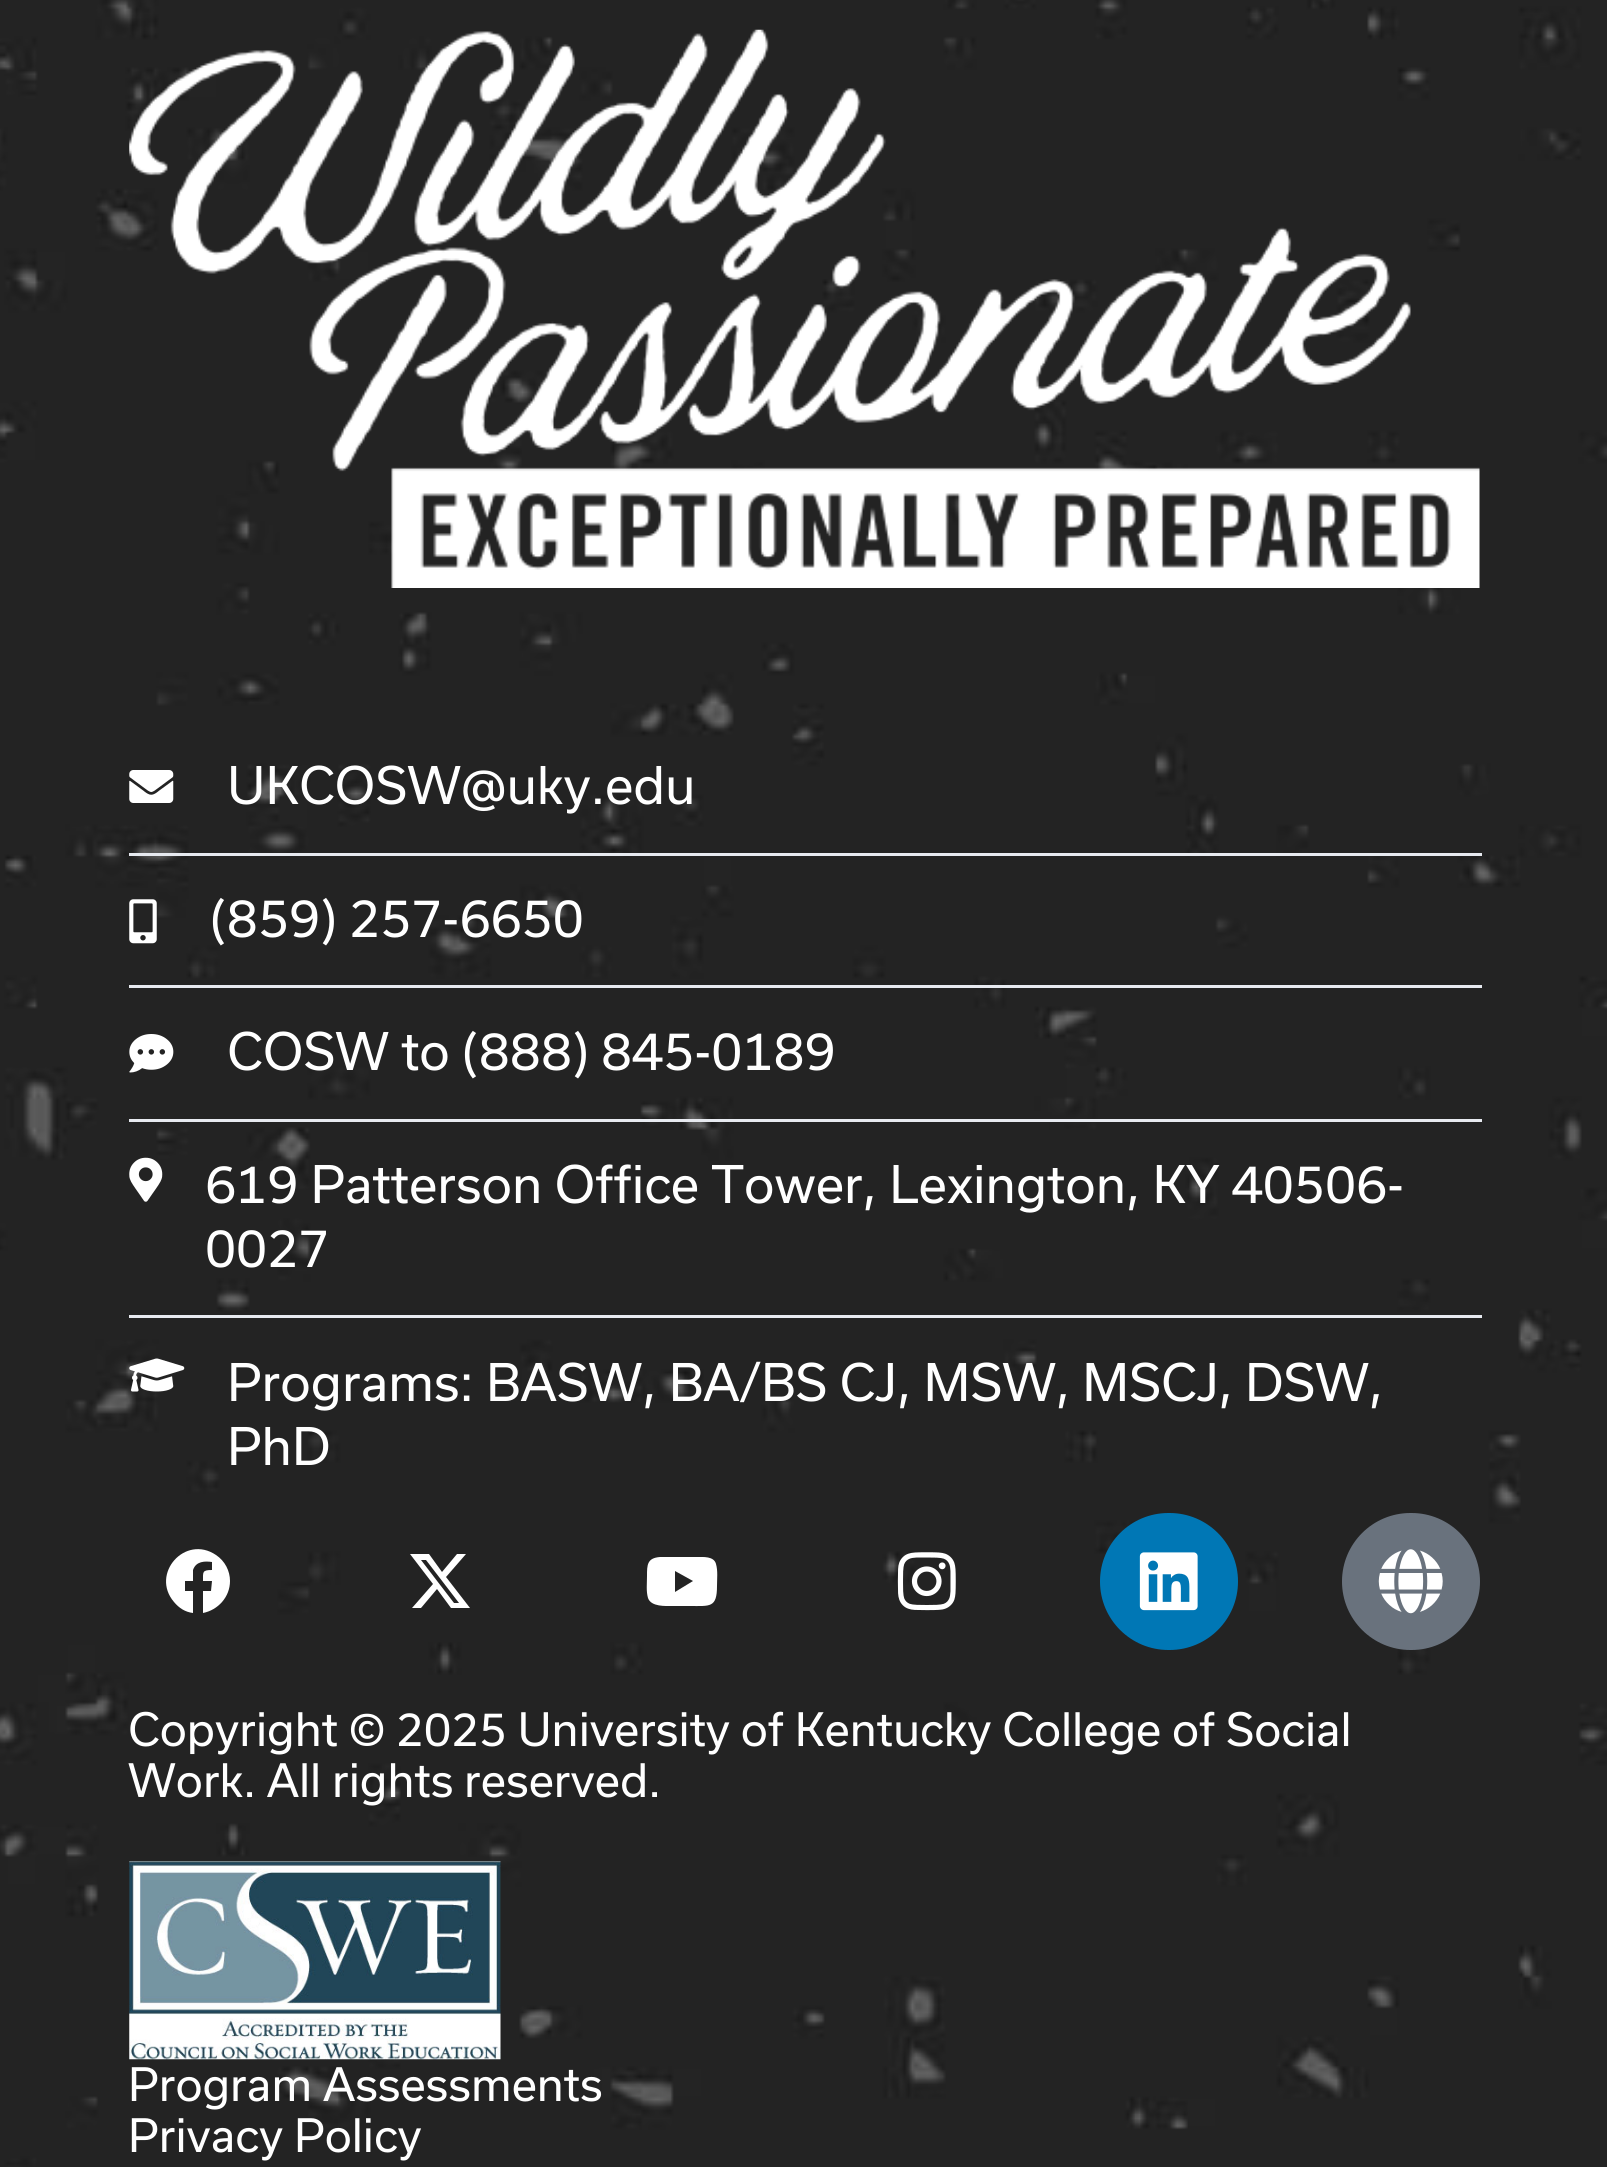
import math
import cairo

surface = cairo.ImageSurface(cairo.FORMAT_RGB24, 1607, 2167)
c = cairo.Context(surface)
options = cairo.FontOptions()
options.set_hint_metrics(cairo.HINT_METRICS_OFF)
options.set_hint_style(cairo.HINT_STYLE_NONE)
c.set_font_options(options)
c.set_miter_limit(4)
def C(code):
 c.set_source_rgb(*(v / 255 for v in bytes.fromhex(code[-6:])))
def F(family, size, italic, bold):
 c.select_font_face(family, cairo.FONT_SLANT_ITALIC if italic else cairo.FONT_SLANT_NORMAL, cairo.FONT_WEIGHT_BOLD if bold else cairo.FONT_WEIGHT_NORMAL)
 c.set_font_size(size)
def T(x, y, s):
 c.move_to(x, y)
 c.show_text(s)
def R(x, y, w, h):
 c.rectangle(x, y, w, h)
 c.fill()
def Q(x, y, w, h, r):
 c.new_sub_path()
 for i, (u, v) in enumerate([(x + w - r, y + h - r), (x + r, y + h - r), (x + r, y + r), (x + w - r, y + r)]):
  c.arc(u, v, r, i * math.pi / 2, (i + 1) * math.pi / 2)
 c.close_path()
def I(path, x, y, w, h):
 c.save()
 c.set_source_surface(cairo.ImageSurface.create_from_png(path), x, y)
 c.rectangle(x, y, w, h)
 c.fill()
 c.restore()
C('ffffff')
c.paint()
I('1.png',0,0,1607,2167)
I('2.png',129,29,1351,559)
I('3.png',129,770,45,33)
F('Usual',49.5,0,0)
C('ffffff')
T(227,804,'UKCOSW@uky.edu')
C('e7eaf0')
R(129,853,1353,3)
I('4.png',129,899,28,45)
C('ffffff')
T(210,937,'(859) 257-6650')
C('e7eaf0')
R(129,985,1353,3)
I('5.png',129,1034,45,39)
C('ffffff')
T(227,1070,'COSW to (888) 845-0189')
C('e7eaf0')
R(129,1119,1353,3)
I('6.png',129,1157,34,45)
C('ffffff')
T(205,1203,'619 Patterson Office Tower, Lexington, KY 40506-')
T(205,1267,'0027')
C('e7eaf0')
R(129,1315,1353,3)
I('7.png',129,1358,56,34)
C('ffffff')
T(227,1401,'Programs: BASW, BA/BS CJ, MSW, MSCJ, DSW,')
T(227,1465,'PhD')
c.new_path()
c.move_to(230,1581)
c.curve_to(230,1597,218,1610,203,1613)
c.line_to(203,1591)
c.line_to(211,1591)
c.line_to(212,1581)
c.line_to(203,1581)
c.curve_to(203,1572,202,1570,212,1570)
c.line_to(212,1562)
c.curve_to(205,1561,196,1561,193,1570)
c.line_to(193,1581)
c.line_to(185,1581)
c.line_to(185,1591)
c.line_to(193,1591)
c.line_to(193,1613)
c.curve_to(185,1612,179,1608,174,1602)
c.curve_to(150,1574,185,1534,216,1555)
c.curve_to(225,1561,230,1571,230,1581)
c.close_path()
c.fill()
c.new_path()
c.move_to(457,1554)
c.line_to(466,1554)
c.line_to(446,1577)
c.line_to(470,1608)
c.line_to(451,1608)
c.line_to(437,1589)
c.line_to(421,1608)
c.line_to(412,1608)
c.line_to(433,1584)
c.line_to(410,1554)
c.line_to(429,1554)
c.line_to(442,1572)
c.close_path()
c.move_to(454,1603)
c.line_to(459,1603)
c.line_to(426,1560)
c.line_to(421,1560)
c.close_path()
c.fill()
c.new_path()
c.move_to(716,1564)
c.curve_to(718,1571,717,1579,717,1586)
c.curve_to(717,1608,710,1606,690,1606)
c.line_to(672,1606)
c.curve_to(666,1606,651,1607,648,1598)
c.curve_to(646,1591,647,1584,647,1576)
c.curve_to(647,1565,647,1558,660,1557)
c.line_to(676,1557)
c.line_to(697,1557)
c.curve_to(703,1557,714,1556,716,1564)
c.close_path()
c.move_to(675,1592)
c.line_to(693,1581)
c.line_to(675,1571)
c.close_path()
c.fill()
I('8.png',897,1552,59,59)
C('0077b5')
Q(1100,1513,138,137,68.5)
c.fill()
I('9.png',1139,1552,59,59)
C('69727d')
Q(1342,1513,138,137,68.5)
c.fill()
I('10.png',1378,1549,65,65)
F('Usual',44,0,0)
C('ffffff')
T(128,1746,'Copyright © 2025 University of Kentucky College of Social')
T(128,1797,'Work. All rights reserved.')
I('11.png',129,1861,372,199)
T(128,2101,'Program Assessments')
T(128,2152,'Privacy Policy')
surface.write_to_png('o.png')
